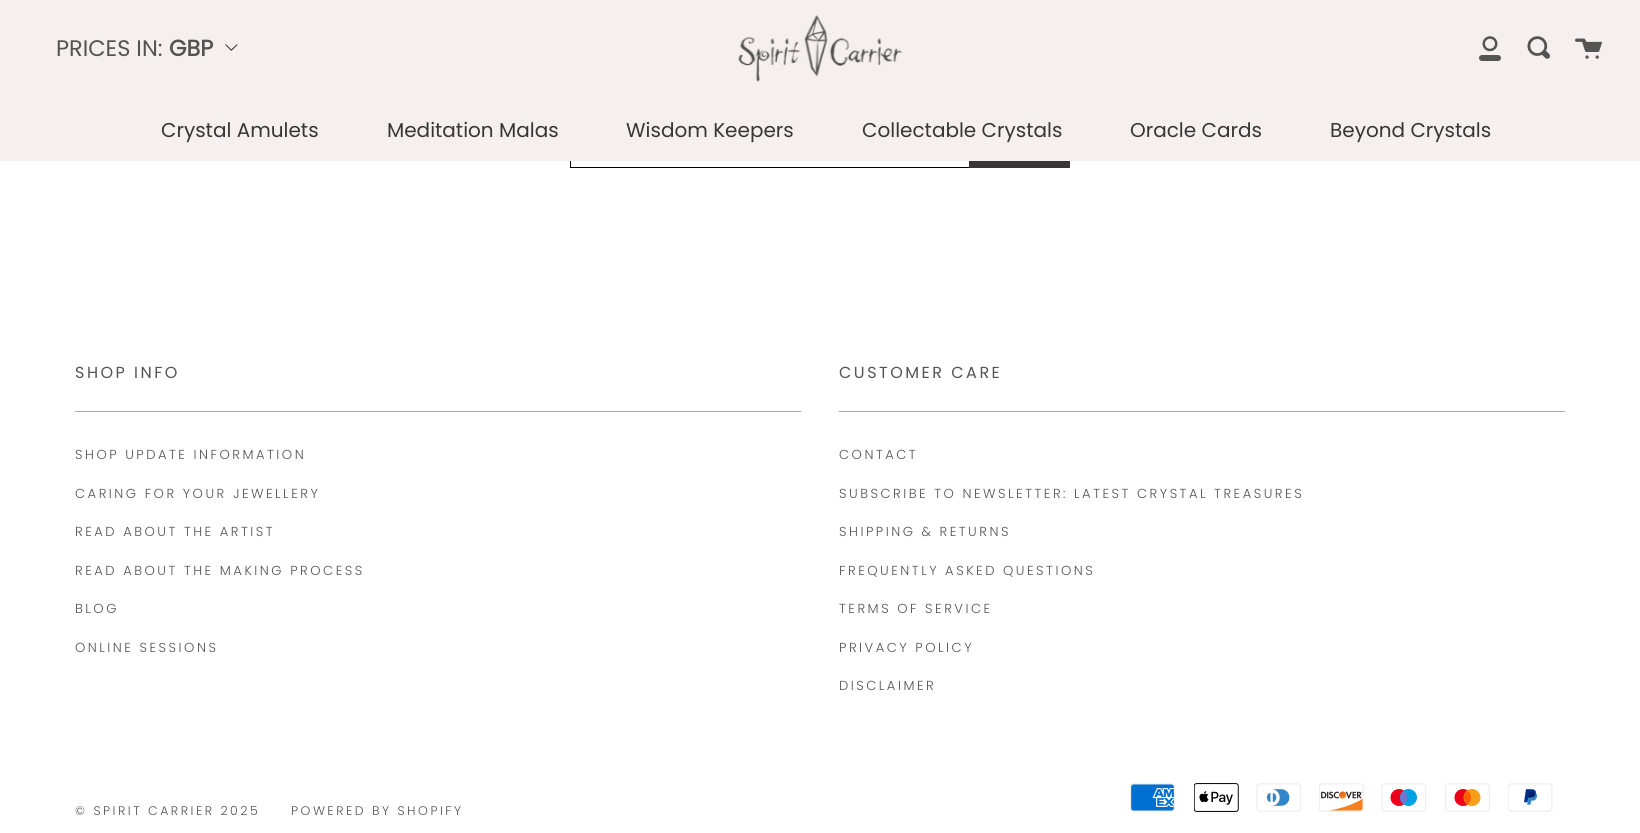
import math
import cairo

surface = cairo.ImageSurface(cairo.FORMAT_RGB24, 1640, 833)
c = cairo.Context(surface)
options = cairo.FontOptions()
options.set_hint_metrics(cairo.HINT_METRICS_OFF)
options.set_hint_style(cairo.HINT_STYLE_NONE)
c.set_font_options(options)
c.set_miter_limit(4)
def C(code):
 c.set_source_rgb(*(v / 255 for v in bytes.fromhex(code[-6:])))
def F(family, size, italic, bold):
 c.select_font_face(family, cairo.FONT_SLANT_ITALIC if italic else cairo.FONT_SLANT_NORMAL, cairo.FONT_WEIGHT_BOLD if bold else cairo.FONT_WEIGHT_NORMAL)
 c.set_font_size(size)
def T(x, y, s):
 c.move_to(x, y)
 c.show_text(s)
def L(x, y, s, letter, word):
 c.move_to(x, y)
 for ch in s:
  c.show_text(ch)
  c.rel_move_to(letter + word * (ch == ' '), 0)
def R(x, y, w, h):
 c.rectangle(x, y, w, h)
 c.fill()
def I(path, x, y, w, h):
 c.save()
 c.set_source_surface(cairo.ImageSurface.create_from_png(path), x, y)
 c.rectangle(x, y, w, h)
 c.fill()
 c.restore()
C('ffffff')
c.paint()
c.rectangle(570.5,124.5,499,43)
C('000000')
c.set_line_width(1)
c.stroke()
C('f5f0ed')
R(0,0,1640,161)
F('Poppins',22.5,0,0)
C('545454')
T(56,56,'PRICES IN:')
F('Poppins',22.5,0,1)
T(169,56,'GBP')
I('1.png',225,44,13,7)
I('2.png',738,15,164,67)
I('3.png',1479,36,22,25)
I('4.png',1527,36,23,23)
I('5.png',1575,38,27,21)
F('Poppins',20,0,0)
C('363636')
T(161,137,'Crystal Amulets')
T(387,137,'Meditation Malas')
T(626,137,'Wisdom Keepers')
T(862,137,'Collectable Crystals')
T(1130,137,'Oracle Cards')
T(1330,137,'Beyond Crystals')
R(969,161,101,7)
F('Poppins',16,0,0)
C('545454')
L(75,378,'SHOP INFO',2.5,0)
C('aaaaaa')
R(75,411,726,1)
F('Poppins Light',13.1,0,0)
C('545454')
L(75,459,'SHOP UPDATE INFORMATION',2.5,0)
L(75,498,'CARING FOR YOUR JEWELLERY',2.5,0)
L(75,536,'READ ABOUT THE ARTIST',2.5,0)
L(75,575,'READ ABOUT THE MAKING PROCESS',2.5,0)
L(75,613,'BLOG',2.5,0)
L(75,652,'ONLINE SESSIONS',2.5,0)
F('Poppins',16,0,0)
L(839,378,'CUSTOMER CARE',2.5,0)
C('aaaaaa')
R(839,411,726,1)
F('Poppins Light',13.1,0,0)
C('545454')
L(839,459,'CONTACT',2.5,0)
L(839,498,'SUBSCRIBE TO NEWSLETTER: LATEST CRYSTAL TREASURES',2.5,0)
L(839,536,'SHIPPING & RETURNS',2.5,0)
L(839,575,'FREQUENTLY ASKED QUESTIONS',2.5,0)
L(839,613,'TERMS OF SERVICE',2.5,0)
L(839,652,'PRIVACY POLICY',2.5,0)
L(839,690,'DISCLAIMER',2.5,0)
F('Poppins Light',12.5,0,0)
L(75,815,'© SPIRIT CARRIER 2025',2.5,0)
L(291,815,'POWERED BY SHOPIFY',2.5,0)
I('6.png',1130,783,45,29)
I('7.png',1194,783,45,29)
I('8.png',1256,783,45,29)
I('9.png',1319,783,45,29)
I('10.png',1381,783,45,29)
I('11.png',1445,783,45,29)
I('12.png',1508,783,45,29)
surface.write_to_png('o.png')
